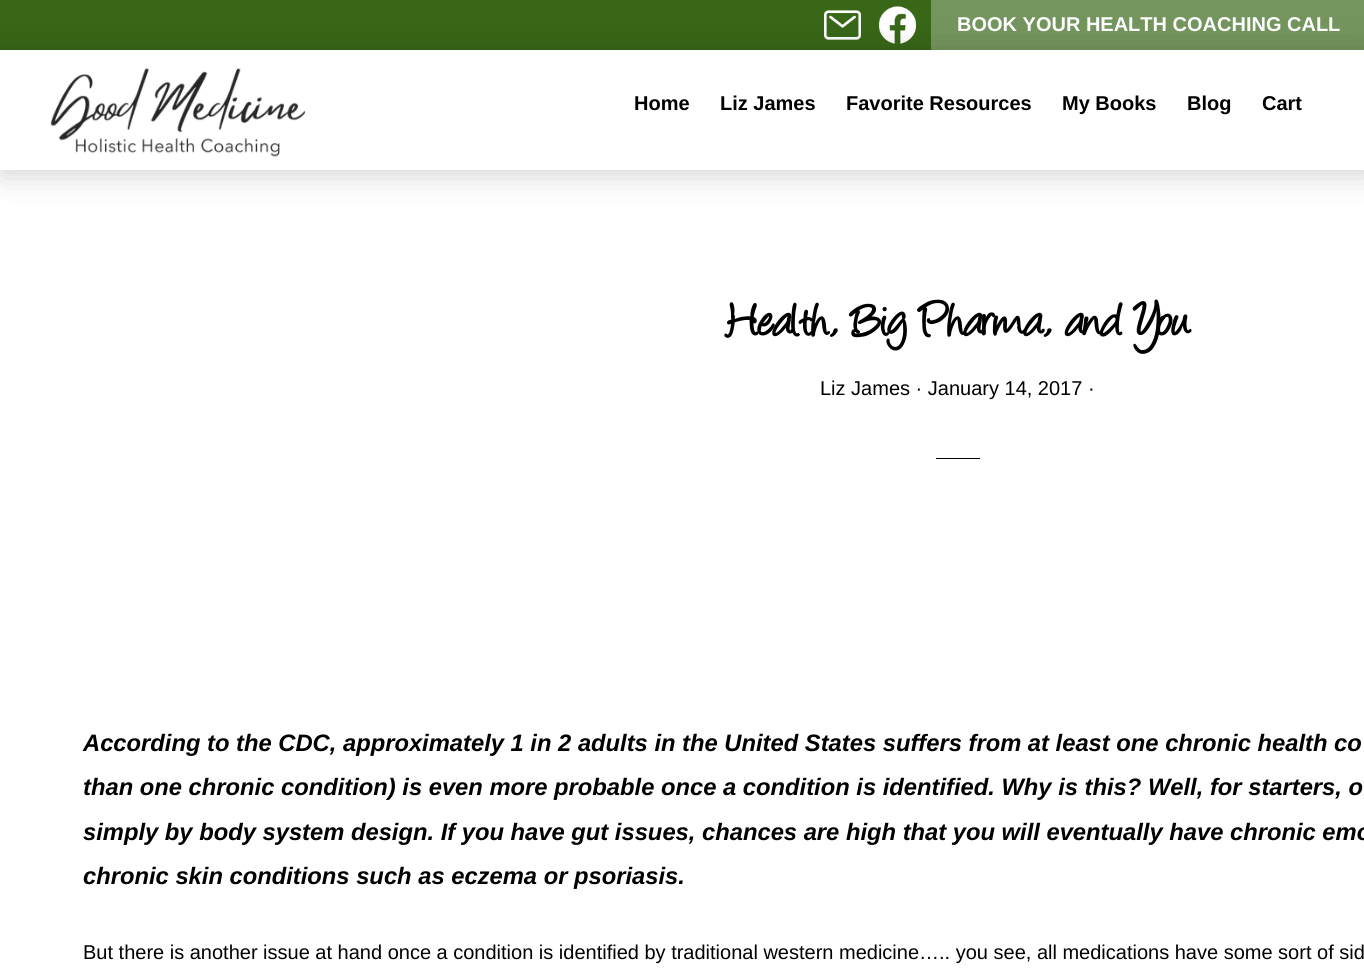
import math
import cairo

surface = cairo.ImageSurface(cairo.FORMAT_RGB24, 1364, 975)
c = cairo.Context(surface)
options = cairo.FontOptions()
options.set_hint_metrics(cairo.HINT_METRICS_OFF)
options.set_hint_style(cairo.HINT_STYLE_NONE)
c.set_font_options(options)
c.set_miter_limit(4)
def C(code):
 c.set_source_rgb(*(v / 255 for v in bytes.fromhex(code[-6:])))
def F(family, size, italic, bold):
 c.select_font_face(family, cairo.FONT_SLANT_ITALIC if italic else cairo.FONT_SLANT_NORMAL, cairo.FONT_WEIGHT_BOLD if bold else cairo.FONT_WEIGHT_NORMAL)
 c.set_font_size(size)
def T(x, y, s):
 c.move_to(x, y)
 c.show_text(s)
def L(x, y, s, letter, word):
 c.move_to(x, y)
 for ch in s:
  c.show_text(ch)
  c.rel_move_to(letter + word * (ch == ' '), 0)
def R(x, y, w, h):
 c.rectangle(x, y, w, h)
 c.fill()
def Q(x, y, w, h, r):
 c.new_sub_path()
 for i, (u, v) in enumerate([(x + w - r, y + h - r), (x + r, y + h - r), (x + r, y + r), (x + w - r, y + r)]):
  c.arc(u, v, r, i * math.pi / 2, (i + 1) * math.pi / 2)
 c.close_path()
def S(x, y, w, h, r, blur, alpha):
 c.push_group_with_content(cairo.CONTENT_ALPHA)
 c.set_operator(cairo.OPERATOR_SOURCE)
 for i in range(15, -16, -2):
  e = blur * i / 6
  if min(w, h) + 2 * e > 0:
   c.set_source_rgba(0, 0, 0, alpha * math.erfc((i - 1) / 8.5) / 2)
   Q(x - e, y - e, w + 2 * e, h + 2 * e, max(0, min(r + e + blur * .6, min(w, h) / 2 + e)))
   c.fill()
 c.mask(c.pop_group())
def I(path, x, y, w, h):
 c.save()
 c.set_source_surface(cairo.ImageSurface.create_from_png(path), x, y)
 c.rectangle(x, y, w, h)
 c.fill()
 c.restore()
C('ffffff')
c.paint()
C('386718')
R(0,0,931,50)
C('74955d')
R(931,0,433,50)
I('1.png',824,10,37,30)
I('2.png',879,6,37,38)
F('Liberation Sans',20,0,1)
C('ffffff')
T(957,31,'BOOK YOUR HEALTH COACHING CALL')
c.save()
c.set_fill_rule(cairo.FILL_RULE_EVEN_ODD)
c.new_path()
c.move_to(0,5)
c.line_to(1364,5)
c.line_to(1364,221)
c.line_to(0,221)
c.close_path()
c.move_to(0,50)
c.line_to(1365,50)
c.line_to(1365,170)
c.line_to(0,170)
c.close_path()
c.clip()
C('000000')
S(3,53,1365,120,0,15.5,.2)
c.restore()
I('3.png',50,68,255,89)
C('000000')
T(634,110,'Home')
T(720,110,'Liz James')
T(846,110,'Favorite Resources')
T(1062,110,'My Books')
T(1187,110,'Blog')
T(1262,110,'Cart')
F('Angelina',52.5,0,1)
L(727,333,'Health, Big Pharma, and You',-.6,0)
F('Liberation Sans',20,0,0)
T(820,395,'Liz James · January 14, 2017 ·')
R(936,458,44,1)
F('Liberation Sans',23.75,1,1)
T(83,751,'According to the CDC, approximately 1 in 2 adults in the United States suffers from at least one chronic health co')
T(83,795,'than one chronic condition) is even more probable once a condition is identified. Why is this? Well, for starters, o')
T(83,840,'simply by body system design. If you have gut issues, chances are high that you will eventually have chronic emo')
T(83,884,'chronic skin conditions such as eczema or psoriasis.')
F('Liberation Sans',20,0,0)
T(83,959,'But there is another issue at hand once a condition is identified by traditional western medicine….. you see, all medications have some sort of sid')
surface.write_to_png('o.png')
